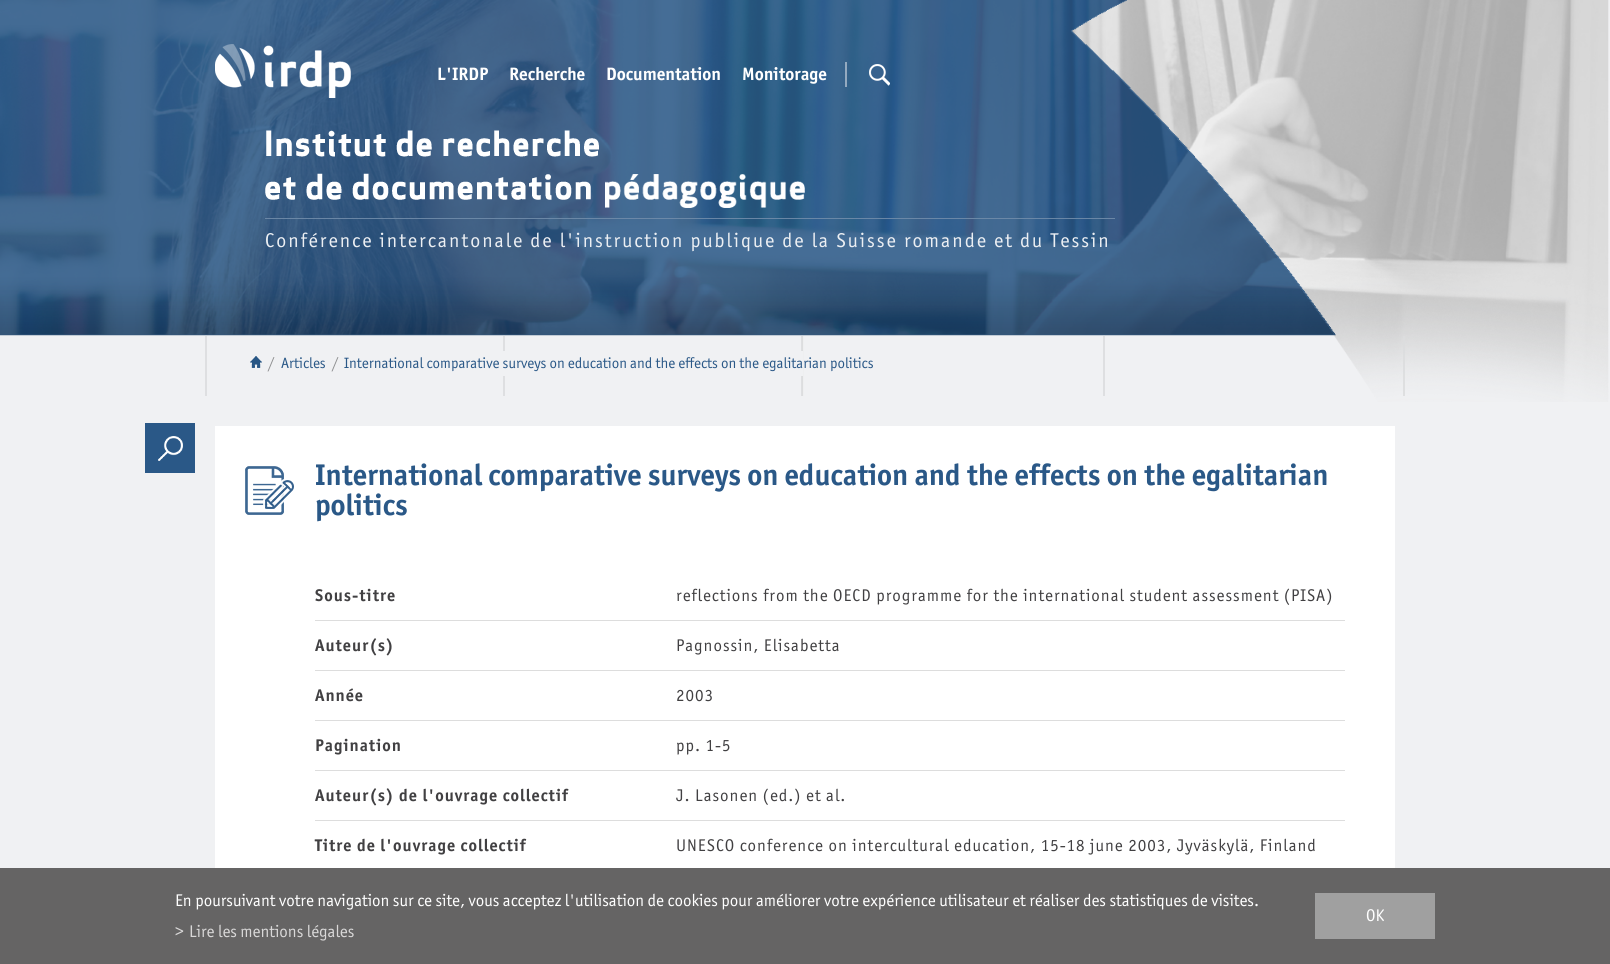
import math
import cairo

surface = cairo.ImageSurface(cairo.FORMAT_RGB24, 1610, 964)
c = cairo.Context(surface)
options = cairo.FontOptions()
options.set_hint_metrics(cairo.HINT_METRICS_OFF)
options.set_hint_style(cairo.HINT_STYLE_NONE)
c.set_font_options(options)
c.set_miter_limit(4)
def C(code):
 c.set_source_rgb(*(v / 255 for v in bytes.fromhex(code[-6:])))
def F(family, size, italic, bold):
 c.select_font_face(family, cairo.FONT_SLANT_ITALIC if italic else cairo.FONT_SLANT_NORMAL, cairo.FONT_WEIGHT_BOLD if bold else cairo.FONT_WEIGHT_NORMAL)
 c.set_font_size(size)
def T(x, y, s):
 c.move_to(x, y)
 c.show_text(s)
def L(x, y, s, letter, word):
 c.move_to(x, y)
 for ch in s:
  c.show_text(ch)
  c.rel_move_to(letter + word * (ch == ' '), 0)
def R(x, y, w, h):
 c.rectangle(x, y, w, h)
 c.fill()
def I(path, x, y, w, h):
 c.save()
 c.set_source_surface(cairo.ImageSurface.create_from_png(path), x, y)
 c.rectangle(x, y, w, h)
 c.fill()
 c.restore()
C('f0f1f3')
c.paint()
I('1.png',0,0,1609,402)
I('2.png',0,0,1336,336)
I('3.png',215,44,136,54)
F('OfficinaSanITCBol',18,0,1)
C('ffffff')
T(437,80,'L\'IRDP')
T(509,80,'Recherche')
T(606,80,'Documentation')
T(742,80,'Monitorage')
I('4.png',869,64,21,22)
C('94aac0')
R(845,62,2,25)
I('5.png',265,130,540,78)
c.set_source_rgba(0.439,0.549,0.667,0.9)
R(265,218,850,1)
F('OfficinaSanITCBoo',20,0,0)
C('eceff3')
L(265,247,'Conférence intercantonale de l\'instruction publique de la Suisse romande et du Tessin',2,0)
I('6.png',205,336,1200,60)
C('f0f1f3')
R(503,351,300,25)
I('7.png',250,356,12,12)
F('OfficinaSanITCBoo',15,0,0)
C('8f9091')
T(268,368,'/')
C('2a5887')
T(281,368,'Articles')
C('8f9091')
T(332,368,'/')
C('2a5887')
T(344,368,'International comparative surveys on education and the effects on the egalitarian politics')
R(145,423,50,50)
I('8.png',158,436,25,25)
C('ffffff')
R(215,426,1180,442)
I('9.png',245,466,49,49)
F('OfficinaSanITCBol',30,0,1)
C('2a5887')
T(315,485,'International comparative surveys on education and the effects on the egalitarian')
T(315,515,'politics')
C('dddddd')
R(315,620,1030,1)
F('OfficinaSanITCBol',17,0,1)
C('414042')
L(315,601,'Sous-titre',1,0)
F('OfficinaSanITCBoo',17,0,0)
L(676,601,'reflections from the OECD programme for the international student assessment (PISA)',1,0)
C('dddddd')
R(315,670,1030,1)
F('OfficinaSanITCBol',17,0,1)
C('414042')
L(315,651,'Auteur(s)',1,0)
F('OfficinaSanITCBoo',17,0,0)
L(676,651,'Pagnossin, Elisabetta',1,0)
C('dddddd')
R(315,720,1030,1)
F('OfficinaSanITCBol',17,0,1)
C('414042')
L(315,701,'Année',1,0)
F('OfficinaSanITCBoo',17,0,0)
L(676,701,'2003',1,0)
C('dddddd')
R(315,770,1030,1)
F('OfficinaSanITCBol',17,0,1)
C('414042')
L(315,751,'Pagination',1,0)
F('OfficinaSanITCBoo',17,0,0)
L(676,751,'pp. 1-5',1,0)
C('dddddd')
R(315,820,1030,1)
F('OfficinaSanITCBol',17,0,1)
C('414042')
L(315,801,'Auteur(s) de l\'ouvrage collectif',1,0)
F('OfficinaSanITCBoo',17,0,0)
L(676,801,'J. Lasonen (ed.) et al.',1,0)
F('OfficinaSanITCBol',17,0,1)
L(315,851,'Titre de l\'ouvrage collectif',1,0)
F('OfficinaSanITCBoo',17,0,0)
L(676,851,'UNESCO conference on intercultural education, 15-18 june 2003, Jyväskylä, Finland',1,0)
C('656464')
R(0,868,1610,96)
C('ffffff')
T(175,906,'En poursuivant votre navigation sur ce site, vous acceptez l\'utilisation de cookies pour améliorer votre expérience utilisateur et réaliser des statistiques de visites.')
C('a0a0a0')
R(1315,893,120,46)
C('ffffff')
T(1366,921,'OK')
C('d9d8d8')
T(175,937,'>')
T(189,937,'Lire les mentions légales')
surface.write_to_png('o.png')
